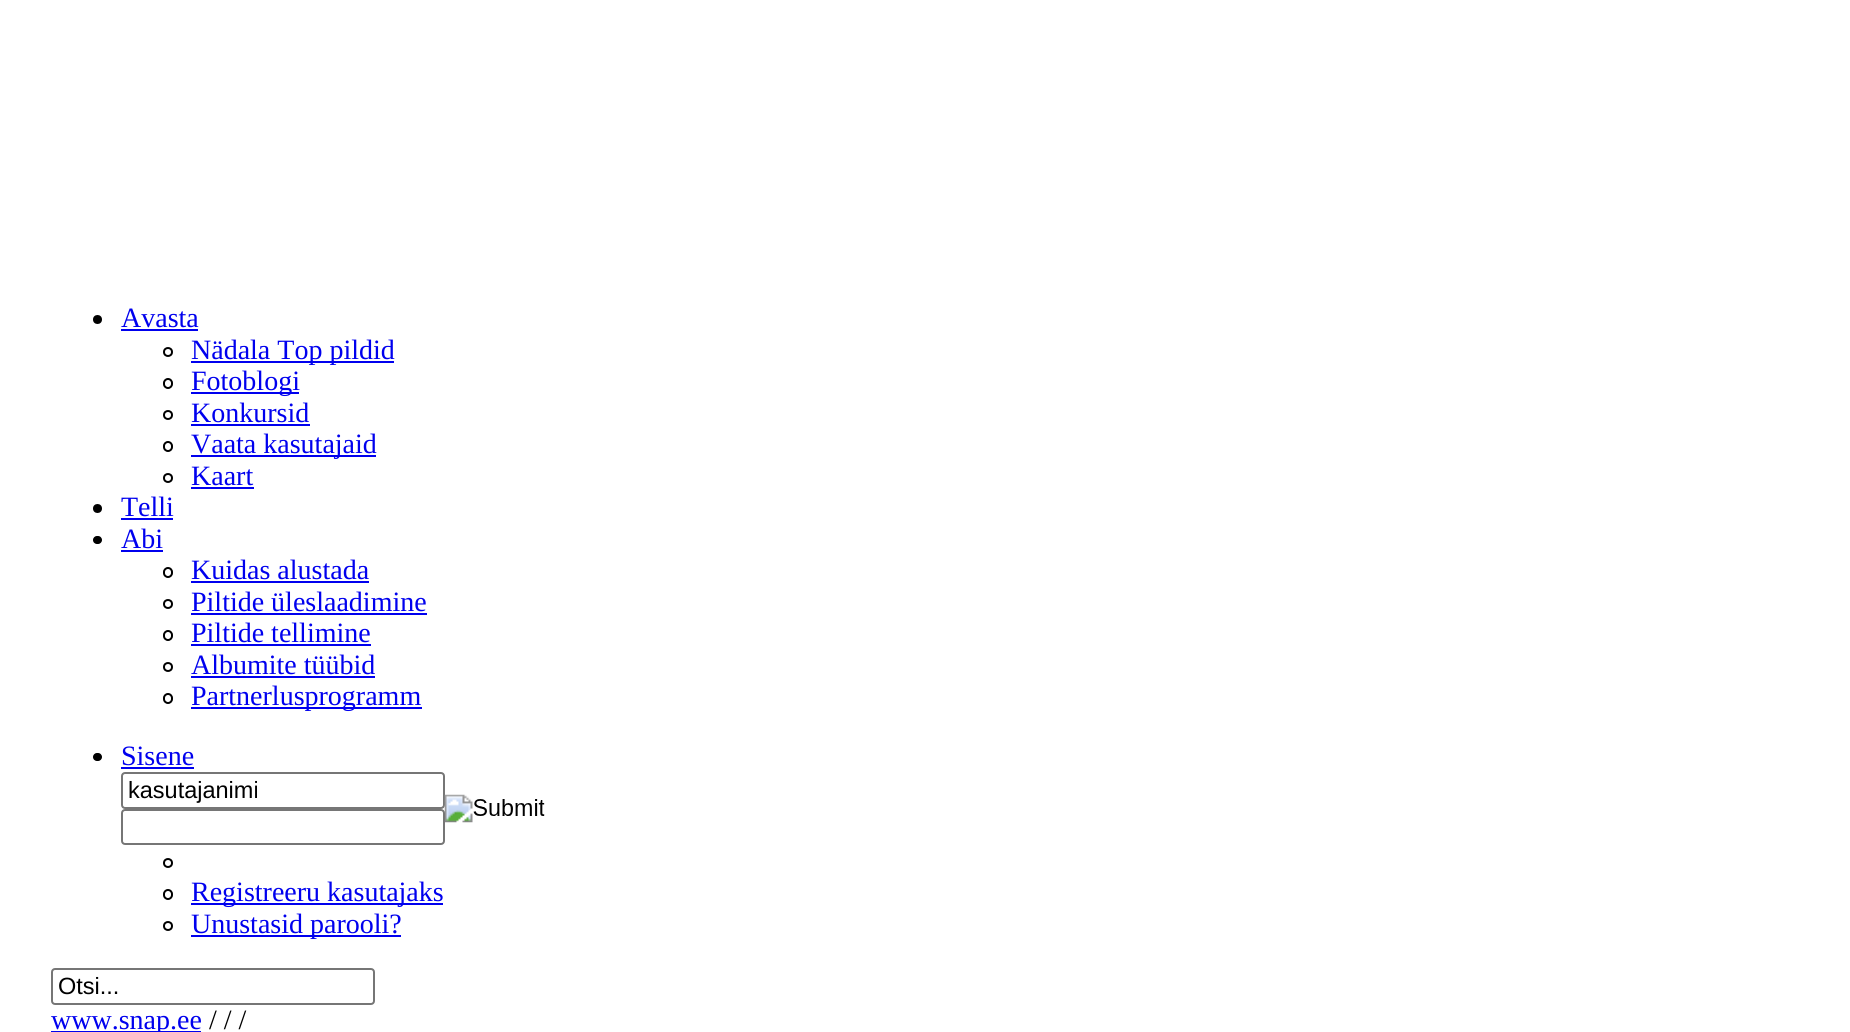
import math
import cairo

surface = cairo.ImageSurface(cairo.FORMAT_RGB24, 1850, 1032)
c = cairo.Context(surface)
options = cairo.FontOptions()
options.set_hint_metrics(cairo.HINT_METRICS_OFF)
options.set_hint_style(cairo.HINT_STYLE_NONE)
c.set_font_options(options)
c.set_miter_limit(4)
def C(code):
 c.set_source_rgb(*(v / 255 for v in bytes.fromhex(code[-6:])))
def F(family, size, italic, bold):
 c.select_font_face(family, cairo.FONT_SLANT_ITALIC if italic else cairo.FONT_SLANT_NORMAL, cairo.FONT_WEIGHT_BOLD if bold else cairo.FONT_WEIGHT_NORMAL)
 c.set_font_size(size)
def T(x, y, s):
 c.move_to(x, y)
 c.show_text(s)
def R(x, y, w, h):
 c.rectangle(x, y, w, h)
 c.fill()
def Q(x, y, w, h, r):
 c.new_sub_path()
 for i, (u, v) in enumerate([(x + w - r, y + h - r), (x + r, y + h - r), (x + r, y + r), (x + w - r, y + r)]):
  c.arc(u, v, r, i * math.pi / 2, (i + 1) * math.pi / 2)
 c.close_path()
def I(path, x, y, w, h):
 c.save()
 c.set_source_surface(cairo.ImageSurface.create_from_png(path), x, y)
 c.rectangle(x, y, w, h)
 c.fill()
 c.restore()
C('ffffff')
c.paint()
C('000000')
c.arc(97.5,319.5,4.5,0,2 * math.pi)
c.fill()
F('Liberation Serif',28,0,0)
C('0000ee')
T(121,327,'Avasta')
R(121,329,77,2)
c.new_path()
c.arc(168,352,4,0,2 * math.pi)
C('000000')
c.stroke()
C('0000ee')
R(191,361,203,2)
T(191,359,'Nädala Top pildid')
Q(164,379,8,9,4)
C('000000')
c.stroke()
C('0000ee')
R(191,392,108,2)
T(191,390,'Fotoblogi')
c.new_path()
c.arc(168,415,4,0,2 * math.pi)
C('000000')
c.stroke()
C('0000ee')
T(191,422,'Konkursid')
R(191,424,119,2)
Q(164,442,8,9,4)
C('000000')
c.stroke()
C('0000ee')
R(191,455,185,2)
T(191,453,'Vaata kasutajaid')
c.new_path()
c.arc(168,478,4,0,2 * math.pi)
C('000000')
c.stroke()
C('0000ee')
T(191,485,'Kaart')
R(191,487,63,2)
C('000000')
c.new_path()
c.arc(97.5,508.5,4.5,0,2 * math.pi)
c.fill()
C('0000ee')
T(121,516,'Telli')
R(121,518,52,2)
C('000000')
Q(93,536,9,8,4)
c.fill()
C('0000ee')
T(121,548,'Abi')
R(121,550,42,2)
Q(164,568,8,9,4)
C('000000')
c.stroke()
C('0000ee')
T(191,579,'Kuidas alustada')
R(191,581,178,2)
c.new_path()
c.arc(168,604,4,0,2 * math.pi)
C('000000')
c.stroke()
C('0000ee')
T(191,611,'Piltide üleslaadimine')
R(191,613,236,2)
Q(164,631,8,9,4)
C('000000')
c.stroke()
C('0000ee')
T(191,642,'Piltide tellimine')
R(191,644,180,2)
c.new_path()
c.arc(168,667,4,0,2 * math.pi)
C('000000')
c.stroke()
C('0000ee')
T(191,674,'Albumite tüübid')
R(191,676,184,2)
Q(164,694,8,9,4)
C('000000')
c.stroke()
C('0000ee')
R(191,707,231,2)
T(191,705,'Partnerlusprogramm')
C('000000')
Q(93,753,9,8,4)
c.fill()
C('0000ee')
T(121,765,'Sisene')
R(121,767,73,2)
Q(122,773,322,35,3)
C('767676')
c.stroke()
F('Liberation Sans',23.5,0,0)
C('000000')
T(128,798,'kasutajanimi')
I('1.png',444,794,101,29)
C('ffffff')
Q(122,810,322,34,3)
c.fill_preserve()
C('767676')
c.stroke()
c.arc(168,863,4,0,2 * math.pi)
C('000000')
c.stroke()
Q(164,890,8,9,4)
c.stroke()
C('0000ee')
R(191,903,252,2)
F('Liberation Serif',28,0,0)
T(191,901,'Registreeru kasutajaks')
c.new_path()
c.arc(168,926,4,0,2 * math.pi)
C('000000')
c.stroke()
C('0000ee')
R(191,935,210,2)
T(191,933,'Unustasid parooli?')
Q(52,969,322,35,3)
C('767676')
c.stroke()
F('Liberation Sans',23.5,0,0)
C('000000')
T(58,994,'Otsi...')
C('0000ee')
R(51,1031,150,1)
F('Liberation Serif',28,0,0)
T(51,1029,'www.snap.ee')
C('000000')
T(209,1029,'/ / /')
surface.write_to_png('o.png')
